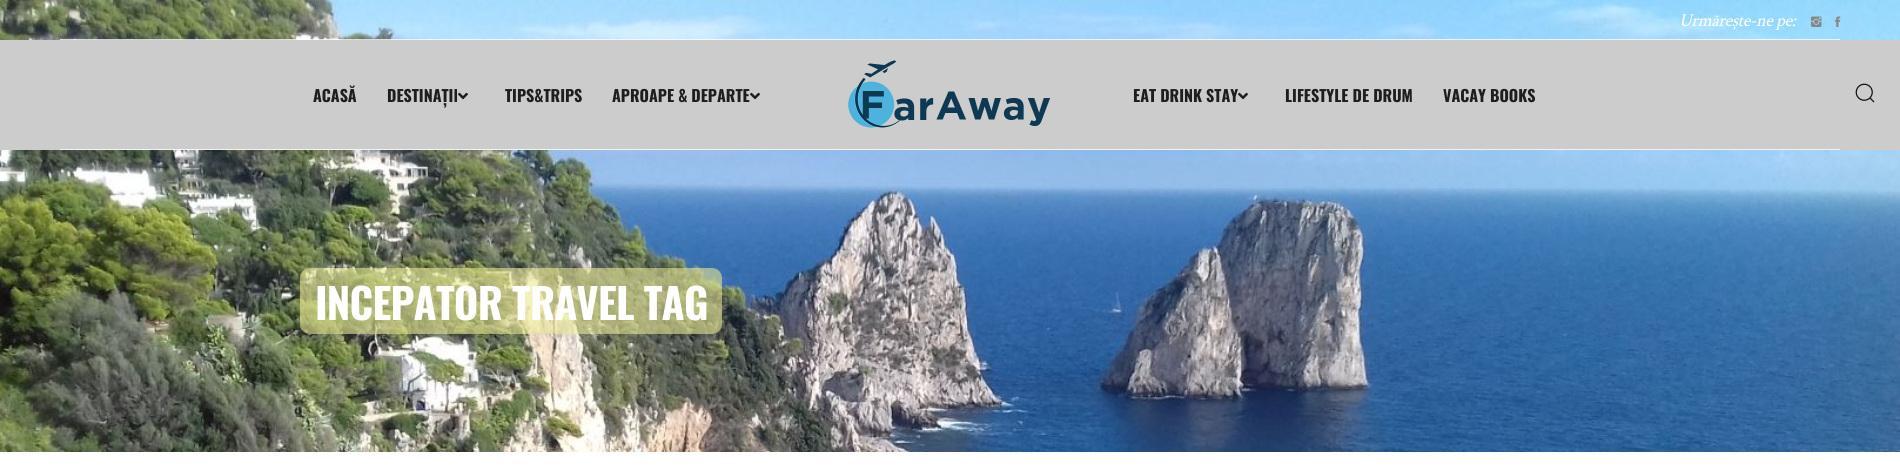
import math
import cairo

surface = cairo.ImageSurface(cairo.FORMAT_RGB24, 1900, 475)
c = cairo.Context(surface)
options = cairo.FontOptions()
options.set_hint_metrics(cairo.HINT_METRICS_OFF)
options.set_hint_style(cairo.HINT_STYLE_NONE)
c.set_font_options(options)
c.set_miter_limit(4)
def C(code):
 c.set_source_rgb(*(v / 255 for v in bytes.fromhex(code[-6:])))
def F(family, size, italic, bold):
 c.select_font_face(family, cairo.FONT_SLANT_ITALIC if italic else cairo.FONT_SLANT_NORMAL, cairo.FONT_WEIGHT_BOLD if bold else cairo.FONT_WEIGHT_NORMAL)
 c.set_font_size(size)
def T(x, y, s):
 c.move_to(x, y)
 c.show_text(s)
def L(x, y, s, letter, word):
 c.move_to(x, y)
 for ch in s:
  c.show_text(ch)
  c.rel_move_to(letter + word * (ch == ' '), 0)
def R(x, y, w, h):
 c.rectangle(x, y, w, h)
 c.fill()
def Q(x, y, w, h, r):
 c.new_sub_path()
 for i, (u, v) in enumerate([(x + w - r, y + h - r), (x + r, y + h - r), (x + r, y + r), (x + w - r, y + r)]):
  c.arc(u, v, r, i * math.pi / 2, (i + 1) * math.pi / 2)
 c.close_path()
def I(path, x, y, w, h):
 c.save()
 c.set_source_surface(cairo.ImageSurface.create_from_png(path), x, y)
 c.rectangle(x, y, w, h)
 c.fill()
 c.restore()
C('ffffff')
c.paint()
I('5.png',0,0,1900,452)
F('Crimson Text',18,1,0)
C('ffffff')
L(1679,26,'Urmărește-ne pe:',-.4,0)
I('1.png',1811,16,11,11)
I('2.png',1835,16,6,11)
c.set_source_rgba(1,1,1,0.75)
R(60,39,1780,1)
C('cccccc')
R(0,40,1900,110)
F('Oswald',16,0,1)
C('1e1e1e')
T(313,102,'ACASĂ')
T(387,102,'DESTINAȚII')
I('3.png',458,92,10,8)
T(505,102,'TIPS&TRIPS')
T(612,102,'APROAPE & DEPARTE')
I('3.png',750,92,10,8)
I('4.png',848,60,203,68)
T(1133,102,'EAT DRINK STAY')
I('3.png',1238,92,10,8)
T(1285,102,'LIFESTYLE DE DRUM')
T(1443,102,'VACAY BOOKS')
C('f2f2f2')
R(60,149,1780,1)
c.set_source_rgba(0.914,0.914,0.58,0.58)
Q(300,268,422,66,10)
c.fill()
F('Oswald',42,0,1)
C('ffffff')
L(315,320,'INCEPATOR TRAVEL TAG',-.8,0)
I('6.png',1855,83,20,20)
surface.write_to_png('o.png')
